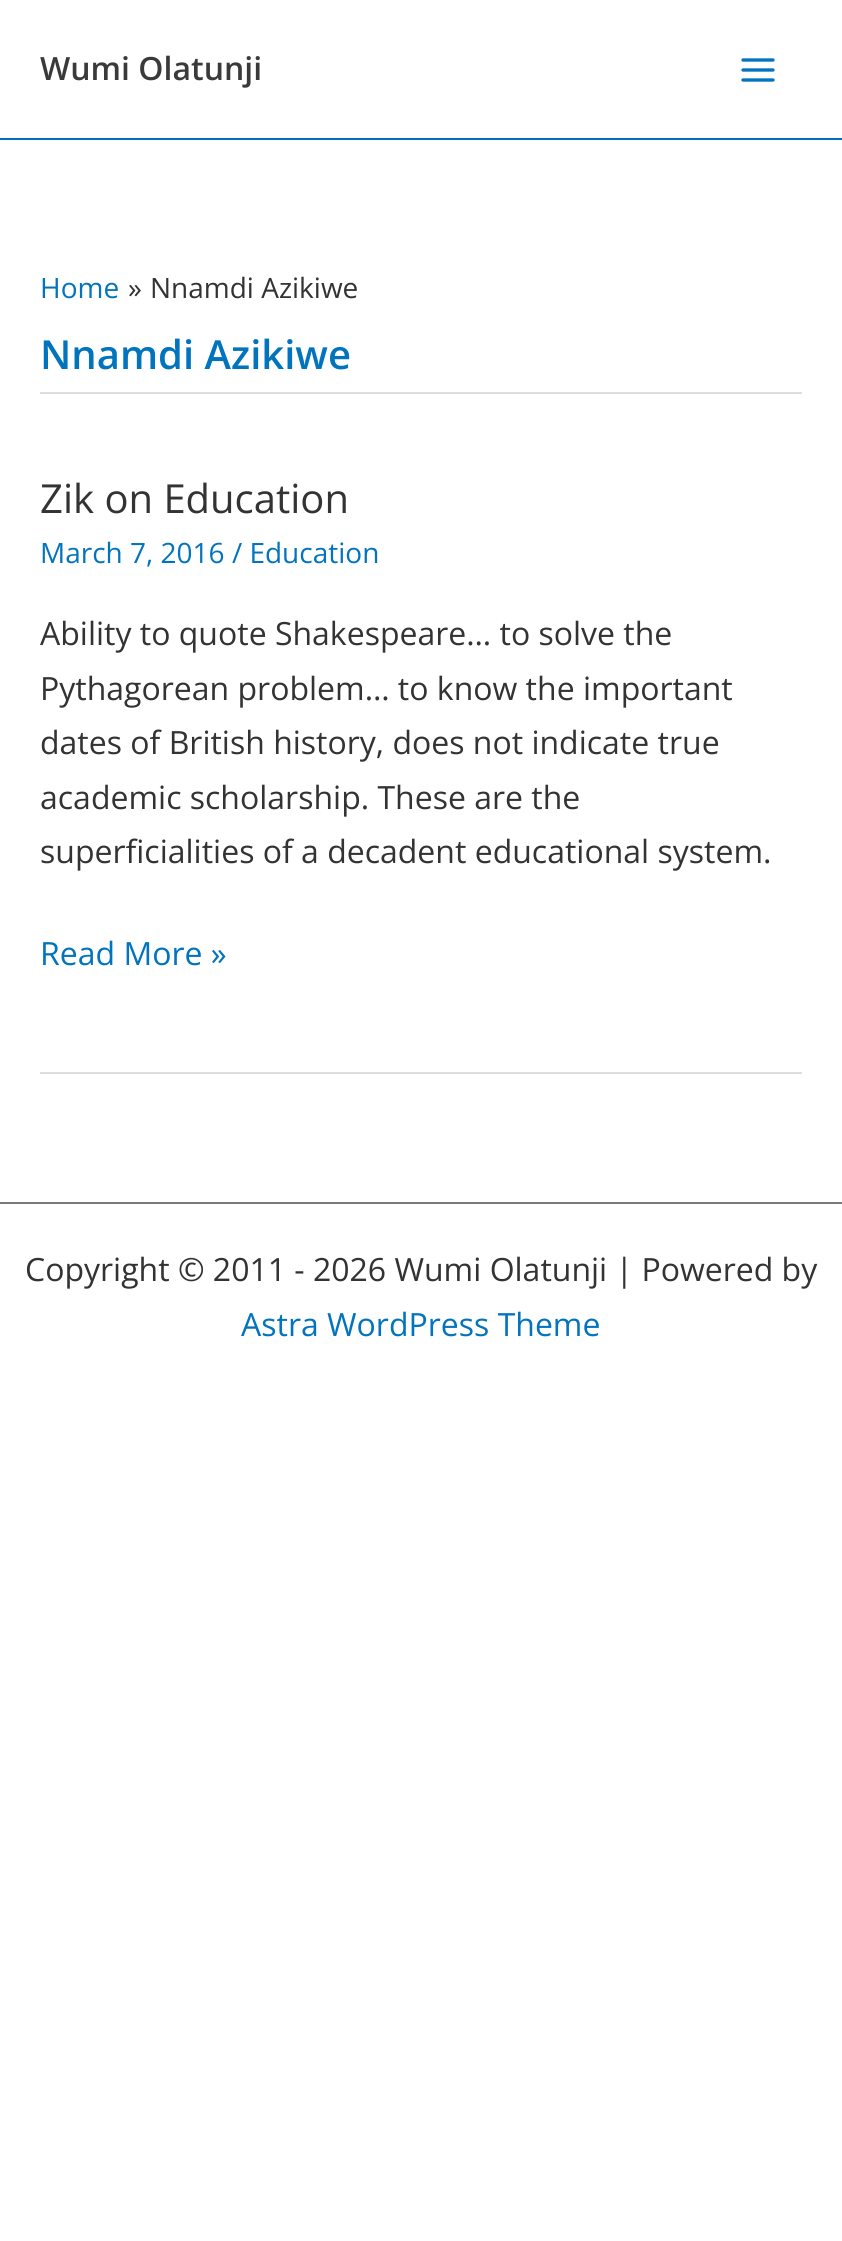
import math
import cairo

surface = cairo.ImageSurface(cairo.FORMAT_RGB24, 842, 2241)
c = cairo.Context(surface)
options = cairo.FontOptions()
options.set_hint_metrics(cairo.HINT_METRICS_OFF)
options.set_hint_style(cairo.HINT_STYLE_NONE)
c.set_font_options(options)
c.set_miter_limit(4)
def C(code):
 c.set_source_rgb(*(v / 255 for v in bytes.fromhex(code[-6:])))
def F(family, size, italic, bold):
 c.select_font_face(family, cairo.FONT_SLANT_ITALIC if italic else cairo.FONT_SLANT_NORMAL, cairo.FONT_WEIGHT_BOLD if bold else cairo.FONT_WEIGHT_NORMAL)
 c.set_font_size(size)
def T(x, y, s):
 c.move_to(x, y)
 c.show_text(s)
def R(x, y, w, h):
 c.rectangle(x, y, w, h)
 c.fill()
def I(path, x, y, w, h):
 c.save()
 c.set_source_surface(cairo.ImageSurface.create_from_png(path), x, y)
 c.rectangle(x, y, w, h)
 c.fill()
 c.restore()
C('ffffff')
c.paint()
C('0170b9')
R(0,138,842,2)
F('Open Sans SemiBold',32,0,0)
C('3a3a3a')
T(40,80,'Wumi Olatunji')
I('1.png',741,58,34,24)
C('dddddd')
R(40,392,762,2)
F('Open Sans',28,0,0)
C('0274be')
T(40,298,'Home')
C('333333')
T(128,298,'»')
T(150,298,'Nnamdi Azikiwe')
F('Open Sans SemiBold',40,0,0)
C('0274be')
T(40,369,'Nnamdi Azikiwe')
C('dddddd')
R(40,1072,762,2)
F('Open Sans',40,0,0)
C('333333')
T(40,513,'Zik on Education')
F('Open Sans',28,0,0)
C('0274be')
T(40,563,'March 7, 2016 / Education')
F('Open Sans',32,0,0)
C('333333')
T(40,645,'Ability to quote Shakespeare… to solve the')
T(40,700,'Pythagorean problem… to know the important')
T(40,754,'dates of British history, does not indicate true')
T(40,809,'academic scholarship. These are the')
T(40,863,'superficialities of a decadent educational system.')
C('0274be')
T(40,965,'Read More »')
C('7a7a7a')
R(0,1202,842,2)
C('333333')
T(25,1281,'Copyright © 2011 - 2026 Wumi Olatunji | Powered by')
C('0274be')
T(241,1336,'Astra WordPress Theme')
surface.write_to_png('o.png')
